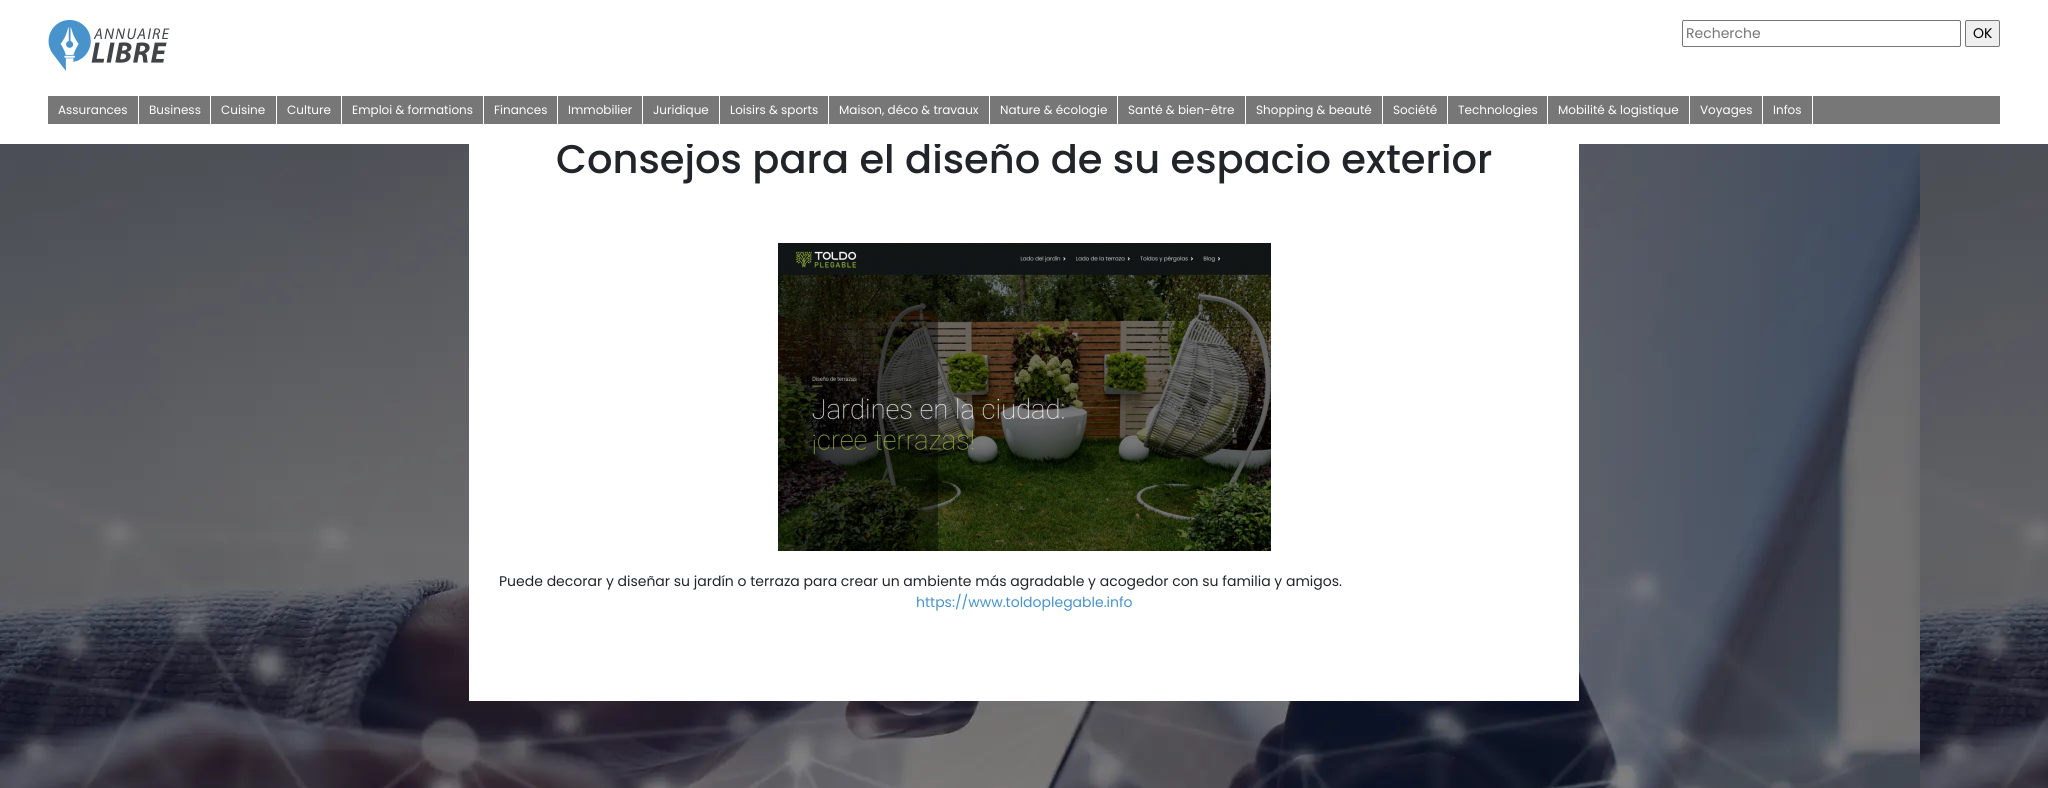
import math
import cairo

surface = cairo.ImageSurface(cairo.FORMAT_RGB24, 2048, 788)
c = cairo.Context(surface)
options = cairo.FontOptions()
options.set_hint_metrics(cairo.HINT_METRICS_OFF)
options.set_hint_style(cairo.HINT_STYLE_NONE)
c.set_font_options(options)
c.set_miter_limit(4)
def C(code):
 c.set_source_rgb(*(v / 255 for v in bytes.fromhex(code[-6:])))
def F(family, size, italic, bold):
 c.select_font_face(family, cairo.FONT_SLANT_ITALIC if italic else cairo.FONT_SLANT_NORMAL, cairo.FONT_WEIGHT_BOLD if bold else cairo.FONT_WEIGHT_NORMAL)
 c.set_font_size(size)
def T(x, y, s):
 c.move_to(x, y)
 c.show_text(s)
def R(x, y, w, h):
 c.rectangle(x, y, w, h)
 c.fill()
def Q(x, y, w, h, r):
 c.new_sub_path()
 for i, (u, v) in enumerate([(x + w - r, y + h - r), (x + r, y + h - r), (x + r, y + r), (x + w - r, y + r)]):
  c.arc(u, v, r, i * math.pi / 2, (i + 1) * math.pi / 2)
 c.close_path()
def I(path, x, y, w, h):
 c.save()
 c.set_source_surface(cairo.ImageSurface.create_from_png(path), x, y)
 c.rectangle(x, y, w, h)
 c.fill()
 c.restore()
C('ffffff')
c.paint()
I('1.png',0,144,2048,644)
C('ffffff')
R(469,144,1110,557)
F('Poppins Medium',40,0,0)
C('212529')
T(556,173,'Consejos para el diseño de su espacio exterior')
C('ffffff')
R(686,142,763,2)
I('2.png',48,20,122,51)
Q(1682.5,20.5,278,26,1.5)
C('767676')
c.set_line_width(1)
c.stroke()
F('Poppins',14,0,0)
C('757575')
T(1686,38,'Recherche')
C('efefef')
Q(1965.5,20.5,34,26,1.5)
c.fill_preserve()
C('767676')
c.stroke()
C('000000')
T(1973,38,'OK')
C('777777')
R(48,96,1952,28)
C('ffffff')
R(138,96,1,28)
F('Poppins',12,0,0)
T(58,114,'Assurances')
R(210,96,1,28)
T(149,114,'Business')
R(276,96,1,28)
T(221,114,'Cuisine')
R(341,96,1,28)
T(287,114,'Culture')
R(483,96,1,28)
T(352,114,'Emploi & formations')
R(557,96,1,28)
T(494,114,'Finances')
R(642,96,1,28)
T(568,114,'Immobilier')
R(719,96,1,28)
T(653,114,'Juridique')
R(828,96,1,28)
T(730,114,'Loisirs & sports')
R(989,96,1,28)
T(839,114,'Maison, déco & travaux')
R(1117,96,1,28)
T(1000,114,'Nature & écologie')
R(1245,96,1,28)
T(1128,114,'Santé & bien-être')
R(1382,96,1,28)
T(1256,114,'Shopping & beauté')
R(1447,96,1,28)
T(1393,114,'Société')
R(1547,96,1,28)
T(1458,114,'Technologies')
R(1689,96,1,28)
T(1558,114,'Mobilité & logistique')
R(1762,96,1,28)
T(1700,114,'Voyages')
R(1812,96,1,28)
T(1773,114,'Infos')
I('3.png',778,243,493,308)
F('Poppins',14,0,0)
C('212529')
T(499,586,'Puede decorar y diseñar su jardín o terraza para crear un ambiente más agradable y acogedor con su familia y amigos.')
C('4893cc')
T(916,607,'https://www.toldoplegable.info')
surface.write_to_png('o.png')
